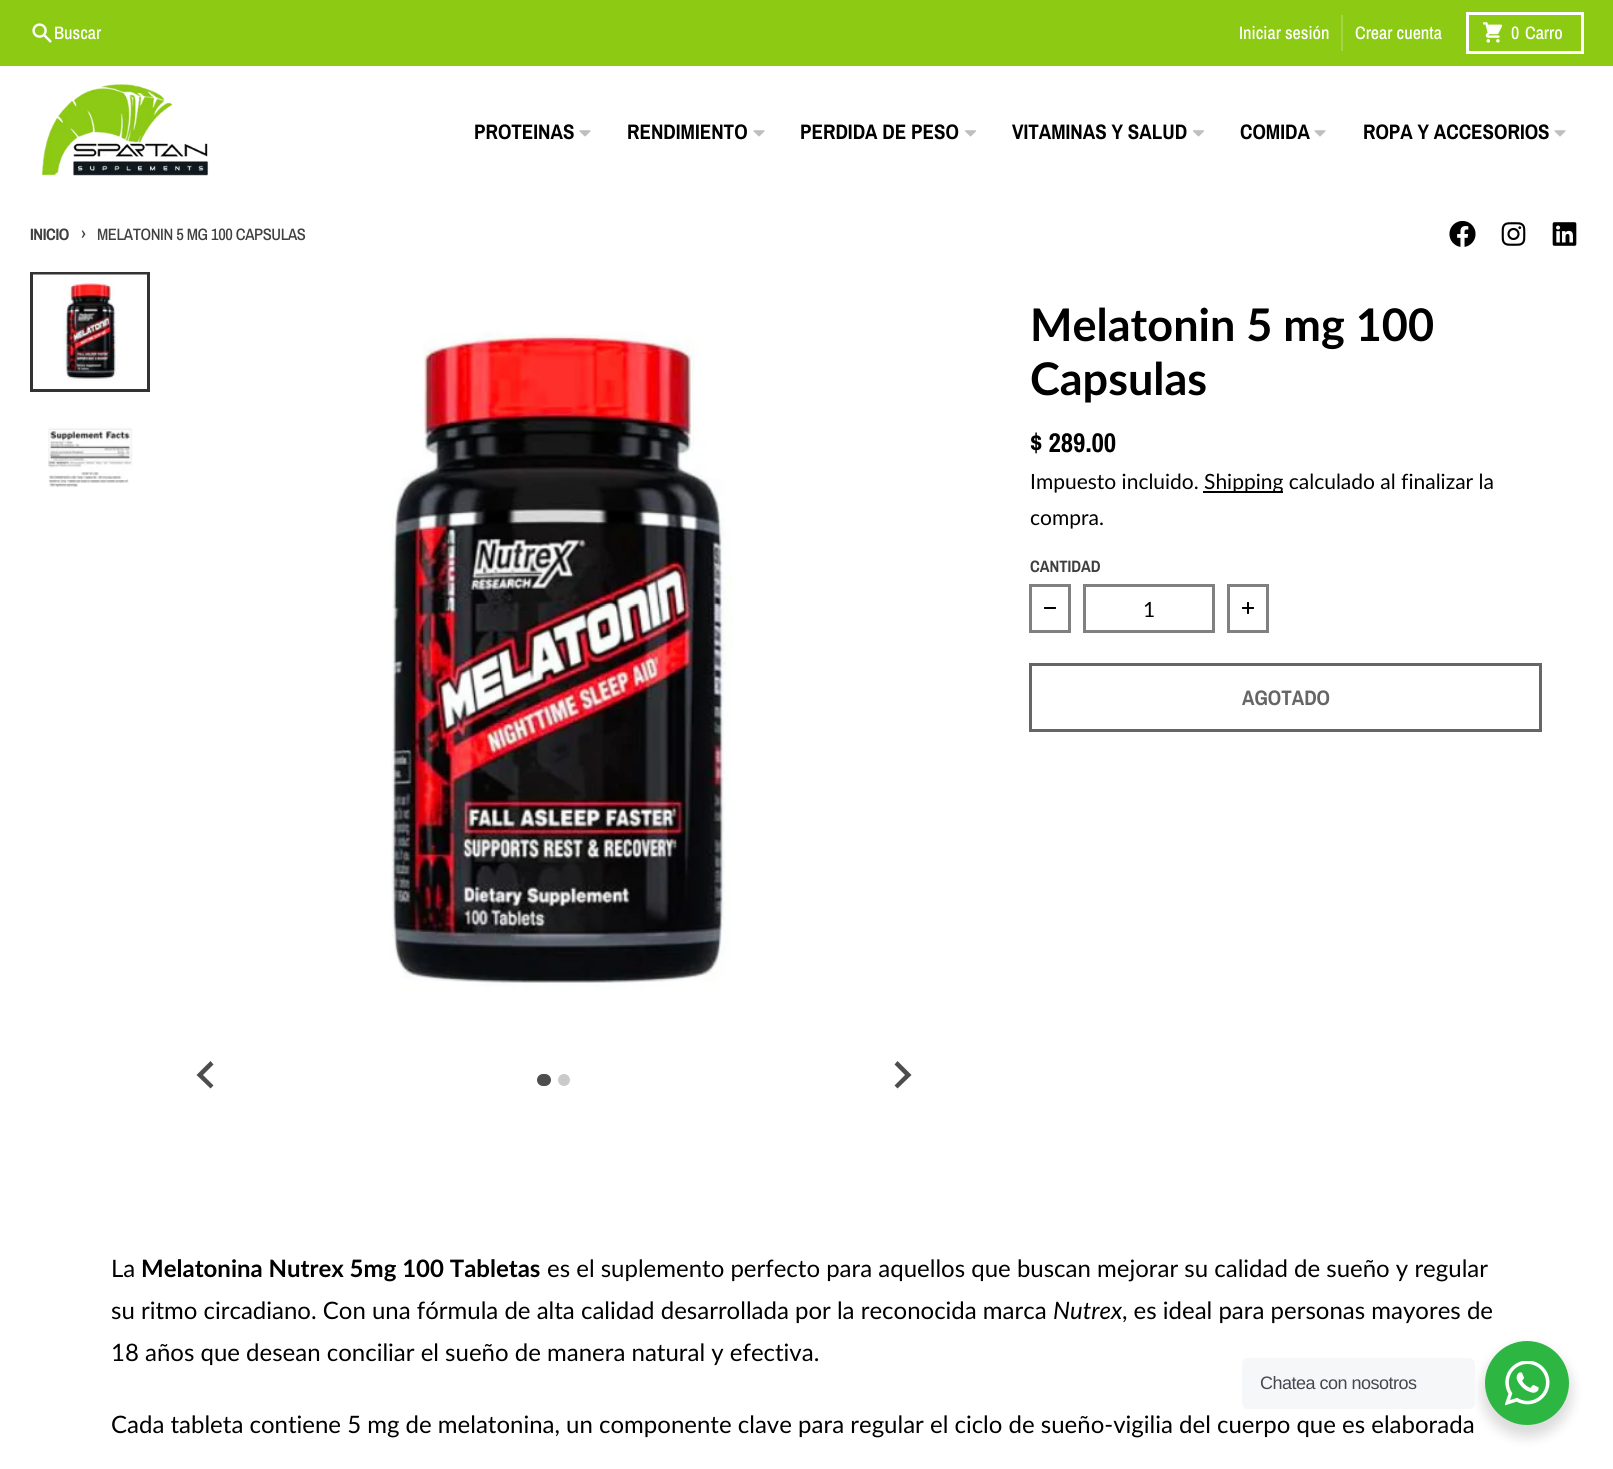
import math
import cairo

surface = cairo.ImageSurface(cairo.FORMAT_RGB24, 1613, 1469)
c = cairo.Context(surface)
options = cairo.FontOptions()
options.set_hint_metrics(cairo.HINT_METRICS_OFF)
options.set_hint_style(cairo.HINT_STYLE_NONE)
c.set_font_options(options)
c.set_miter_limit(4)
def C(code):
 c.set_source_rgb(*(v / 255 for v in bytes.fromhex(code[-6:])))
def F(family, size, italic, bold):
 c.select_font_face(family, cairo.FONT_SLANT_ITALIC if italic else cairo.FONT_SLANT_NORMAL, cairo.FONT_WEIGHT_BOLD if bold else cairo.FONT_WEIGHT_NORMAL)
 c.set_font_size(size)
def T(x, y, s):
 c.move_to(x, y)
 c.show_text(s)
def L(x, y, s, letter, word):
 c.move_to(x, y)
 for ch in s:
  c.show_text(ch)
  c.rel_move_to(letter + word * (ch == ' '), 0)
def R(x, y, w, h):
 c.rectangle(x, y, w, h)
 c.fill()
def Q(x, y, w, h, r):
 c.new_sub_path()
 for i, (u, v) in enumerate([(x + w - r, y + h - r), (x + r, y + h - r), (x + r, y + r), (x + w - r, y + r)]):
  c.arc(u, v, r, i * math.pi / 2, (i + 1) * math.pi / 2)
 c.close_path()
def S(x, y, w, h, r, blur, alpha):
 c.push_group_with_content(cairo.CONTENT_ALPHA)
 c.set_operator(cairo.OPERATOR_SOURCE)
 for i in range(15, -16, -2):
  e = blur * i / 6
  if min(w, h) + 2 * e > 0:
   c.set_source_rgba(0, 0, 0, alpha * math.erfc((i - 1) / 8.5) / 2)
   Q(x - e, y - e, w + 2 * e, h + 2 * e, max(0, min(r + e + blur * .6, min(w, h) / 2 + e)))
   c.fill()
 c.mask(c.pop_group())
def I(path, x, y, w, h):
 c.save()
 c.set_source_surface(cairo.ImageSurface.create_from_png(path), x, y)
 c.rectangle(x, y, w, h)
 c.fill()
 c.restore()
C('ffffff')
c.paint()
C('8cca14')
R(0,0,1613,66)
I('1.png',32,23,20,20)
F('Archivo Narrow Medium',18,0,0)
C('ffffff')
T(54,39,'Buscar')
T(1239,39,'Iniciar sesión')
C('a3d543')
R(1341,15,2,36)
C('ffffff')
T(1355,39,'Crear cuenta')
c.rectangle(1467.5,13.5,115,39)
c.set_line_width(3)
c.stroke()
I('2.png',1482,22,21,21)
T(1511,39,'0')
T(1525,39,'Carro')
I('3.png',42,84,167,92)
F('Archivo Narrow',21,0,1)
C('000000')
T(474,139,'PROTEINAS')
I('4.png',579,130,12,7)
T(627,139,'RENDIMIENTO')
I('4.png',753,130,12,7)
T(800,139,'PERDIDA DE PESO')
I('5.png',965,130,11,7)
T(1012,139,'VITAMINAS Y SALUD')
I('5.png',1193,130,11,7)
T(1240,139,'COMIDA')
I('4.png',1314,130,12,7)
T(1363,139,'ROPA Y ACCESORIOS')
I('4.png',1554,130,12,7)
F('Archivo Narrow',16.5,0,1)
C('404040')
L(30,240,'INICIO',-.4,0)
F('Archivo Narrow Medium',18,0,0)
L(81,240,'›',-.4,0)
F('Archivo Narrow Medium',16.5,0,0)
L(97,240,'MELATONIN 5 MG 100 CAPSULAS',-.4,0)
I('6.png',1449,221,27,26)
I('7.png',1501,222,25,24)
I('8.png',1552,222,25,24)
c.rectangle(31.5,273.5,117,117)
C('333333')
c.stroke()
I('9.png',33,274,114,107)
I('10.png',48,427,85,60)
I('11.png',390,331,343,660)
C('4d4d4d')
c.new_path()
c.move_to(210.5,1061)
c.line_to(213.5,1064.5)
c.line_to(203,1075)
c.line_to(213.5,1085.5)
c.line_to(210.5,1088.5)
c.line_to(196.5,1075)
c.close_path()
c.fill()
c.new_path()
c.move_to(897.5,1061)
c.line_to(894.5,1064.5)
c.line_to(905,1075)
c.line_to(894.5,1085.5)
c.line_to(897.5,1088.5)
c.line_to(911.5,1075)
c.close_path()
c.fill()
Q(537,1074,14,12,6)
c.fill()
C('cacaca')
c.arc(564,1080,6,0,2 * math.pi)
c.fill()
F('Lato',45,0,1)
C('000000')
T(1030,341,'Melatonin 5 mg 100')
T(1030,395,'Capsulas')
F('Archivo Narrow',27,0,1)
T(1030,452,'$ 289.00')
F('Lato',21,0,0)
T(1030,489,'Impuesto incluido.')
R(1203,491,80,2)
T(1204,489,'Shipping calculado al finalizar la')
T(1030,525,'compra.')
F('Archivo Narrow',16.5,0,1)
C('404040')
T(1030,572,'CANTIDAD')
c.rectangle(1030.5,585.5,39,46)
C('808080')
c.stroke()
I('12.png',1044,607,12,2)
c.rectangle(1084.5,585.5,129,46)
c.stroke()
F('Lato',21,0,0)
C('000000')
T(1143,617,'1')
c.rectangle(1228.5,585.5,39,46)
C('808080')
c.stroke()
I('13.png',1242,602,12,12)
c.rectangle(1030.5,664.5,510,66)
C('666666')
c.stroke()
F('Archivo Narrow',21,0,1)
T(1242,705,'AGOTADO')
F('Lato',24,0,0)
C('000000')
T(111,1277,'La')
F('Lato',24,0,1)
T(141,1277,'Melatonina Nutrex 5mg 100 Tabletas')
F('Lato',24,0,0)
T(547,1277,'es el suplemento perfecto para aquellos que buscan mejorar su calidad de sueño y regular')
T(111,1319,'su ritmo circadiano. Con una fórmula de alta calidad desarrollada por la reconocida marca')
F('Lato',24,1,0)
T(1053,1319,'Nutrex')
F('Lato',24,0,0)
T(1122,1319,', es ideal para personas mayores de')
T(111,1361,'18 años que desean conciliar el sueño de manera natural y efectiva.')
T(111,1433,'Cada tableta contiene 5 mg de melatonina, un componente clave para regular el ciclo de sueño-vigilia del cuerpo que es elaborada')
C('000000')
S(1482,1347,90,90,45,6,.14)
C('f5f7f9')
Q(1242,1358,233,51,6)
c.fill()
F('Liberation Sans',18,0,0)
C('43474e')
L(1260,1389,'Chatea con nosotros',-.5,0)
C('2db742')
c.new_path()
c.arc(1527,1383,42,0,2 * math.pi)
c.fill()
I('14.png',1505,1361,45,45)
surface.write_to_png('o.png')
